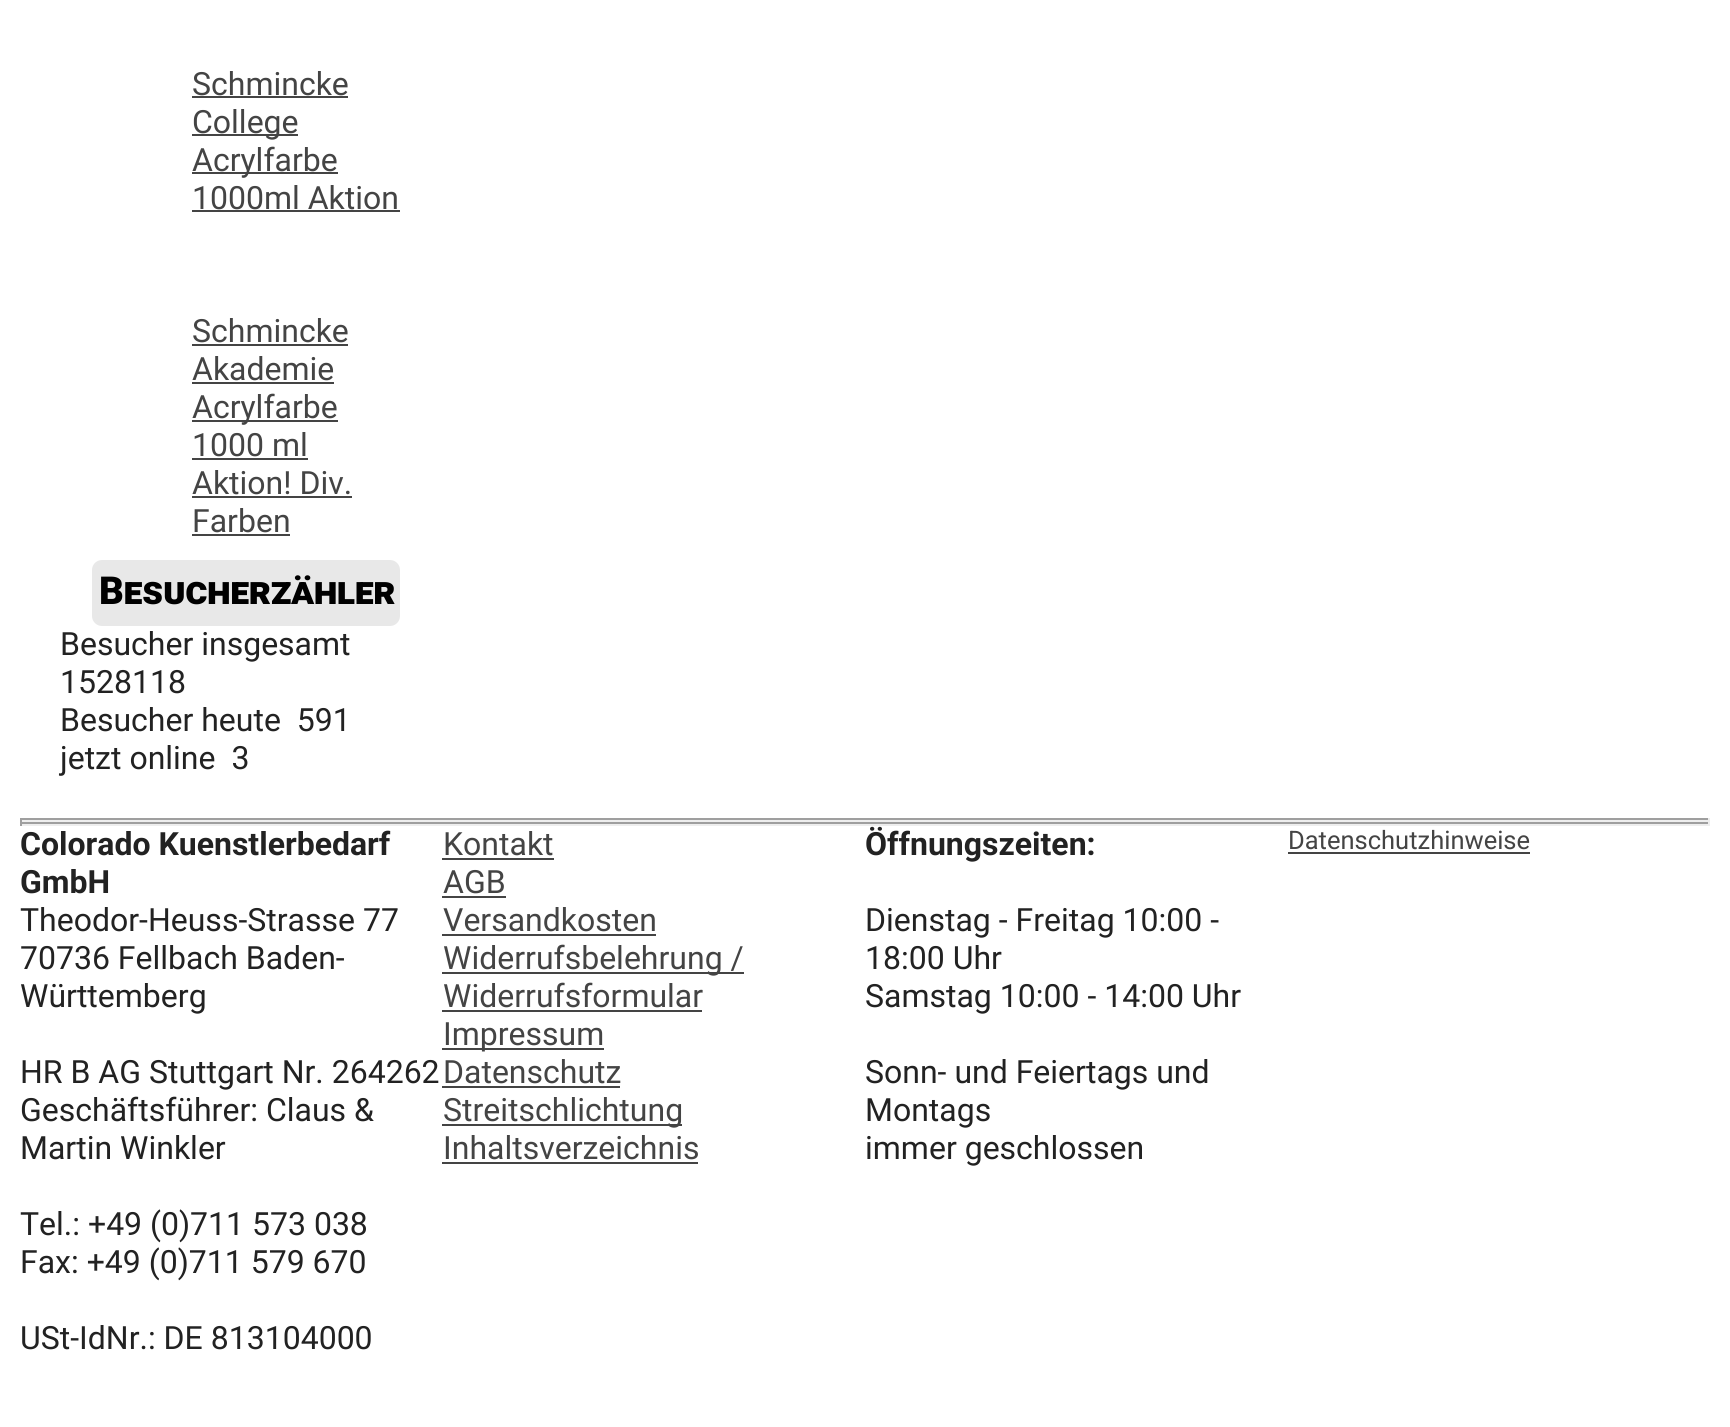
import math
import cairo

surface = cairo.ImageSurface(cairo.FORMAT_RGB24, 1730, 1427)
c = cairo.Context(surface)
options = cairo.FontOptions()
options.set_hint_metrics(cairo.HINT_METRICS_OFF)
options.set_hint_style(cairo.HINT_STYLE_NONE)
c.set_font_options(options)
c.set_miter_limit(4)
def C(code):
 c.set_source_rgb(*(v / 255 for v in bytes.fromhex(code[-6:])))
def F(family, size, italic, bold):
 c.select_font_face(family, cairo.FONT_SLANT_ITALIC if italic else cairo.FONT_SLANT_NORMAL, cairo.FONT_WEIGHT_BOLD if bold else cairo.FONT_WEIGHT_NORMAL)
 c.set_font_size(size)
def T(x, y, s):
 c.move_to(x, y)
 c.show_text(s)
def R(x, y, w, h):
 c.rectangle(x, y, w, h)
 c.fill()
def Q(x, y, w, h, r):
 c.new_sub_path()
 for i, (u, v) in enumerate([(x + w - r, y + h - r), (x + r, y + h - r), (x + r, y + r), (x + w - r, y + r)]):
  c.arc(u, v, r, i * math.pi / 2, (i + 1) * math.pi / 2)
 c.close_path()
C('ffffff')
c.paint()
F('Roboto',32,0,0)
C('444444')
T(192,95,'Schmincke')
R(192,96,156,2)
R(192,134,106,2)
T(192,133,'College')
R(192,172,146,2)
T(192,171,'Acrylfarbe')
T(192,209,'1000ml Aktion')
R(192,210,208,2)
T(192,342,'Schmincke')
R(192,344,156,2)
T(192,380,'Akademie')
R(192,382,142,2)
R(192,420,146,2)
T(192,418,'Acrylfarbe')
T(192,456,'1000 ml')
R(192,458,116,2)
T(192,494,'Aktion! Div.')
R(192,496,160,2)
T(192,532,'Farben')
R(192,534,98,2)
C('e8e8e8')
Q(93,561,306,64,9)
c.fill_preserve()
c.stroke()
F('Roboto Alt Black',38.5,0,0)
C('000000')
T(99,604,'Besucherzähler')
F('Roboto',32,0,0)
C('222222')
T(60,655,'Besucher insgesamt')
T(60,693,'1528118')
T(60,731,'Besucher heute  591')
T(60,769,'jetzt online  3')
C('9f9f9f')
R(20,818,1690,2)
C('eeeeee')
R(1708,818,2,4)
R(20,820,1690,2)
C('9f9f9f')
R(20,818,2,4)
R(20,822,1690,2)
C('eeeeee')
R(1708,822,2,4)
R(20,824,1690,2)
C('9f9f9f')
R(20,822,2,4)
F('Roboto',32,0,1)
C('222222')
T(20,855,'Colorado Kuenstlerbedarf')
T(20,893,'GmbH')
F('Roboto',32,0,0)
T(20,931,'Theodor-Heuss-Strasse 77')
T(20,969,'70736 Fellbach Baden-')
T(20,1007,'Württemberg')
T(20,1083,'HR B AG Stuttgart Nr. 264262')
T(20,1121,'Geschäftsführer: Claus &')
T(20,1159,'Martin Winkler')
T(20,1235,'Tel.: +49 (0)711 573 038')
T(20,1273,'Fax: +49 (0)711 579 670')
T(20,1349,'USt-IdNr.: DE 813104000')
C('444444')
T(443,855,'Kontakt')
R(442,858,112,2)
T(443,893,'AGB')
R(442,896,64,2)
T(443,931,'Versandkosten')
R(442,934,214,2)
R(442,972,302,2)
T(443,969,'Widerrufsbelehrung /')
T(443,1007,'Widerrufsformular')
R(442,1010,260,2)
R(442,1048,162,2)
T(443,1045,'Impressum')
T(443,1083,'Datenschutz')
R(442,1086,178,2)
R(442,1124,240,2)
T(443,1121,'Streitschlichtung')
T(443,1159,'Inhaltsverzeichnis')
R(442,1162,256,2)
F('Roboto',32,0,1)
C('222222')
T(865,855,'Öffnungszeiten:')
F('Roboto',32,0,0)
T(865,931,'Dienstag - Freitag 10:00 -')
T(865,969,'18:00 Uhr')
T(865,1007,'Samstag 10:00 - 14:00 Uhr')
T(865,1083,'Sonn- und Feiertags und')
T(865,1121,'Montags')
T(865,1159,'immer geschlossen')
F('Roboto',25.5,0,0)
C('444444')
T(1288,849,'Datenschutzhinweise')
R(1288,852,242,2)
surface.write_to_png('o.png')
